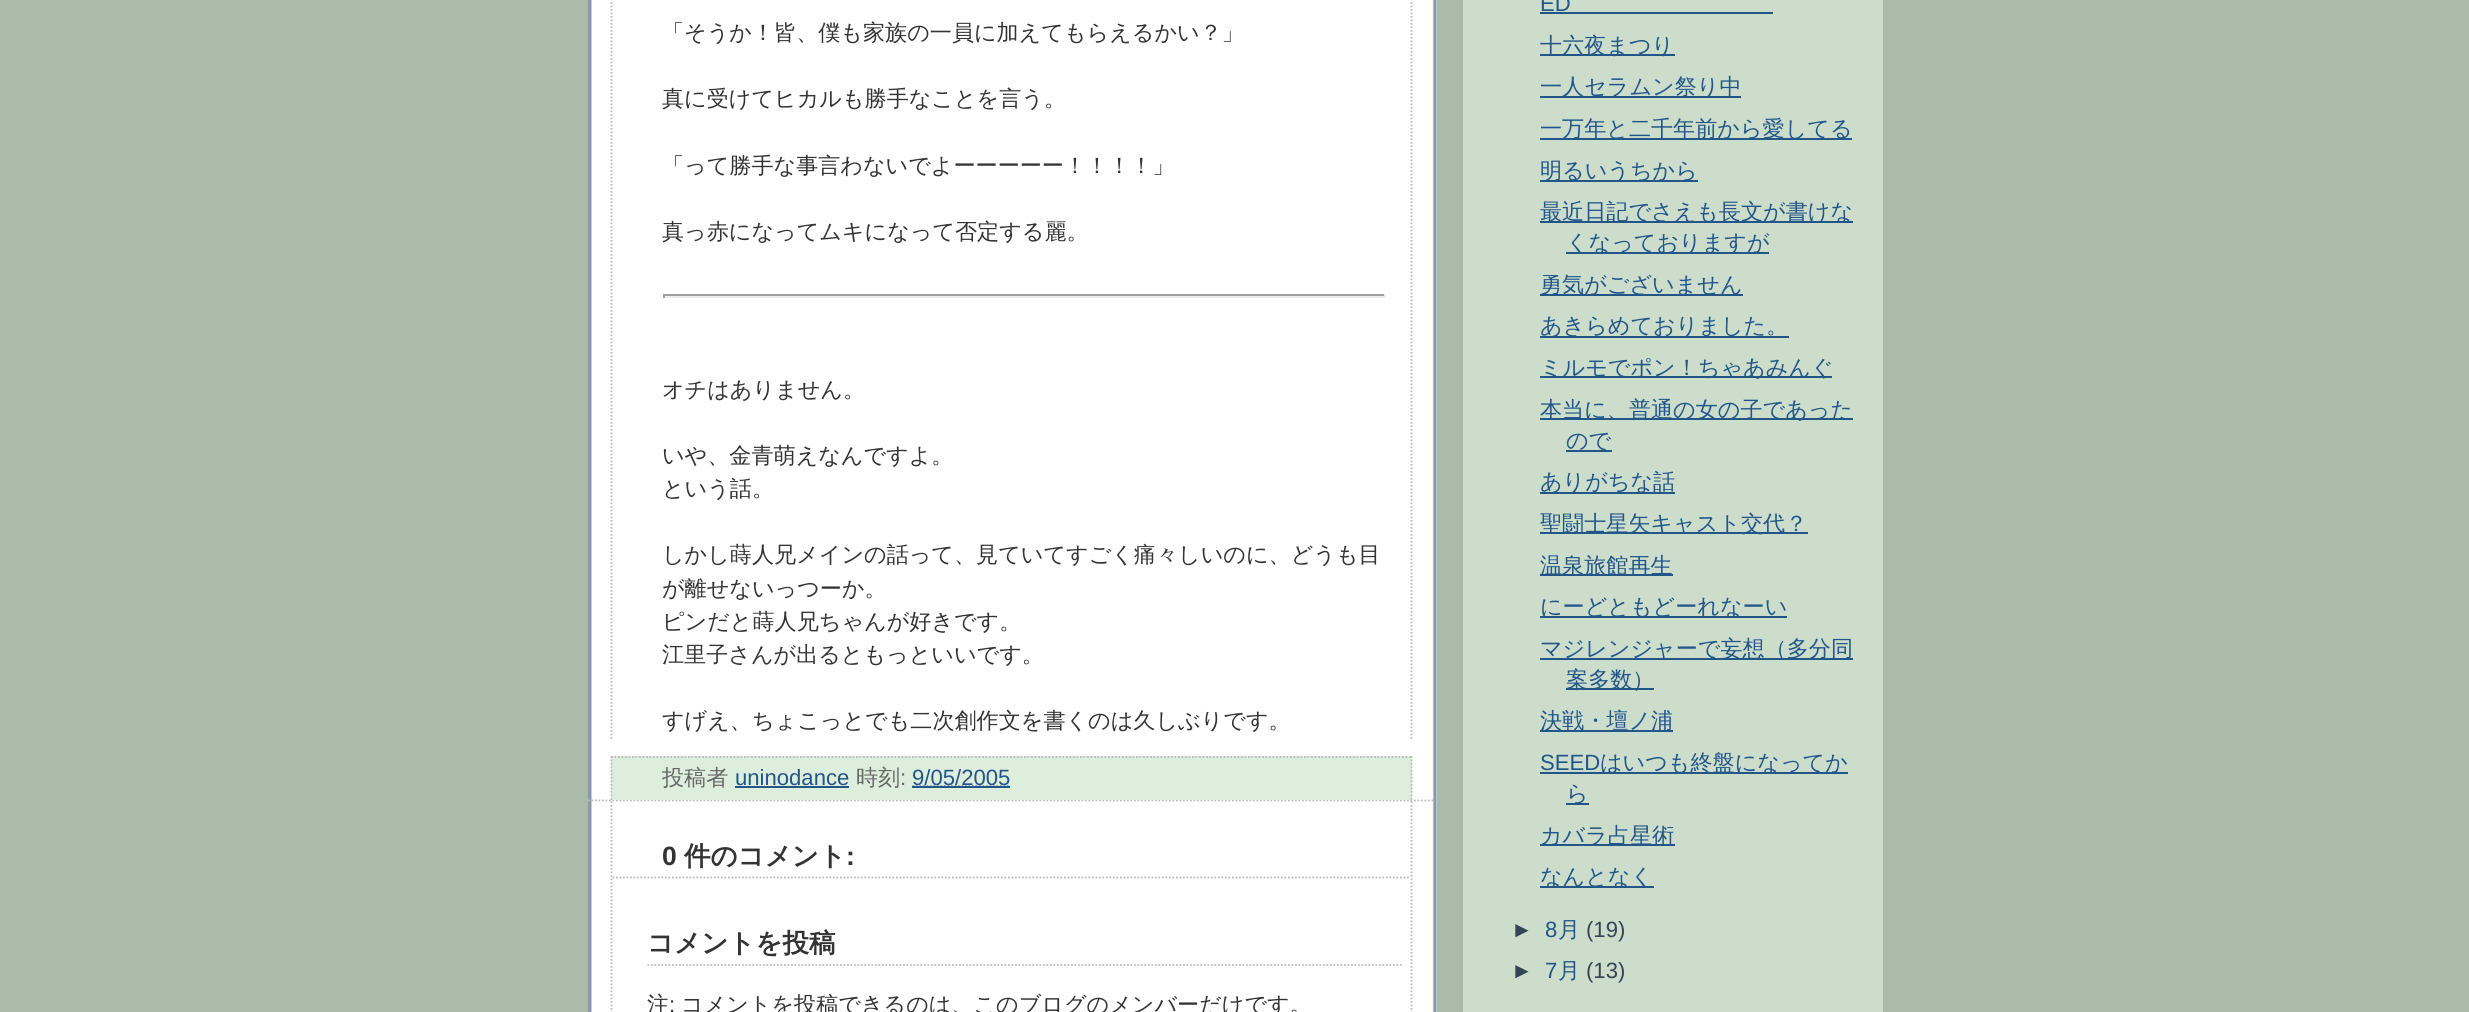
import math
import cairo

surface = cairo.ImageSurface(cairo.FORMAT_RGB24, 2469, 1012)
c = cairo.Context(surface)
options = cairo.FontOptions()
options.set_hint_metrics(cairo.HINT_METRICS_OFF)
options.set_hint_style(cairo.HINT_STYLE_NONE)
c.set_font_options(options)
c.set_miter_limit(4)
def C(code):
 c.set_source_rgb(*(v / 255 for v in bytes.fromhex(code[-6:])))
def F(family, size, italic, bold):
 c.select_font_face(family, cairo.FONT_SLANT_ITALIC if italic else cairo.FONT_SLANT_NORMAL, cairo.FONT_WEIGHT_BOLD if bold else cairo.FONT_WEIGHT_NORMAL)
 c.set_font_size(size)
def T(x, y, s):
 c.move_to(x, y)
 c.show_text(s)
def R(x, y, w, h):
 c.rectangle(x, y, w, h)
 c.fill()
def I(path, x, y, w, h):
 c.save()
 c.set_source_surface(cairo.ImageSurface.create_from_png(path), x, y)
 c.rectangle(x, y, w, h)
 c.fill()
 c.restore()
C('aabbaa')
c.paint()
C('ffffff')
R(591,0,846,1012)
I('1.png',588,0,849,1012)
c.new_path()
c.move_to(588,800.5)
c.line_to(1435,800.5)
C('bbbbbb')
c.set_line_width(1.8)
c.set_dash([1.75,1.75])
c.stroke()
c.new_path()
c.move_to(1411.5,-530)
c.line_to(1411.5,740)
c.stroke()
c.new_path()
c.move_to(611.5,-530)
c.line_to(611.5,740)
c.stroke()
F('WenQuanYi Zen Hei Medium',22.1,0,0)
C('333333')
T(662,40,'「そうか！皆、僕も家族の一員に加えてもらえるかい？」')
T(662,106,'真に受けてヒカルも勝手なことを言う。')
T(662,173,'「って勝手な事言わないでよーーーーー！！！！」')
T(662,239,'真っ赤になってムキになって否定する麗。')
C('9f9f9f')
R(663,294,723,2)
C('eeeeee')
R(1384,294,2,4)
R(663,296,723,2)
C('9f9f9f')
R(663,294,2,4)
C('333333')
T(662,397,'オチはありません。')
T(662,463,'いや、金青萌えなんですよ。')
T(662,496,'という話。')
T(662,562,'しかし蒔人兄メインの話って、見ていてすごく痛々しいのに、どうも目')
T(662,596,'が離せないっつーか。')
T(662,629,'ピンだと蒔人兄ちゃんが好きです。')
T(662,662,'江里子さんが出るともっといいです。')
T(662,728,'すげえ、ちょこっとでも二次創作文を書くのは久しぶりです。')
C('ddeedd')
R(611,756,801,44)
c.new_path()
c.move_to(611,757)
c.line_to(1412,757)
C('bbbbbb')
c.stroke()
c.new_path()
c.move_to(1411.5,756)
c.line_to(1411.5,800)
c.stroke()
c.new_path()
c.move_to(611.5,756)
c.line_to(611.5,800)
c.stroke()
C('666666')
T(662,785,'投稿者')
F('Liberation Sans',22.1,0,0)
C('225588')
T(735,785,'uninodance')
R(735,786,114,2)
F('WenQuanYi Zen Hei Medium',22.1,0,0)
C('666666')
T(856,785,'時刻')
F('Liberation Sans',22.1,0,0)
T(900,785,':')
c.new_path()
c.move_to(912.5,786.5)
c.line_to(1010.5,786.5)
C('225588')
c.stroke()
T(912,785,'9/05/2005')
R(912,786,98,2)
c.new_path()
c.move_to(1411.5,801.5)
c.line_to(1411.5,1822)
C('bbbbbb')
c.stroke()
c.new_path()
c.move_to(611.5,801.5)
c.line_to(611.5,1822)
c.stroke()
c.new_path()
c.move_to(612.5,877.5)
c.line_to(1410.5,877.5)
c.stroke()
F('Liberation Sans',26.5,0,1)
C('333333')
T(662,865,'0')
F('WenQuanYi Zen Hei',26.5,0,1)
T(684,865,'件のコメント')
F('Liberation Sans',26.5,0,1)
T(846,865,':')
c.new_path()
c.move_to(647.5,965)
c.line_to(1402,965)
C('bbbbbb')
c.stroke()
F('WenQuanYi Zen Hei',26.5,0,1)
C('333333')
T(647,952,'コメントを投稿')
F('WenQuanYi Zen Hei Medium',22.1,0,0)
T(647,1012,'注')
F('Liberation Sans',22.1,0,0)
T(669,1012,':')
F('WenQuanYi Zen Hei Medium',22.1,0,0)
T(681,1012,'コメントを投稿できるのは、このブログのメンバーだけです。')
C('ccddcc')
R(1463,0,420,1012)
F('Liberation Sans',22.1,0,0)
C('225588')
T(1540,11,'ED')
R(1540,12,233,2)
R(1540,54,135,2)
F('WenQuanYi Zen Hei Medium',22.1,0,0)
T(1540,53,'十六夜まつり')
R(1540,96,201,2)
T(1540,94,'一人セラムン祭り中')
R(1540,138,312,2)
T(1540,136,'一万年と二千年前から愛してる')
R(1540,180,158,2)
T(1540,178,'明るいうちから')
R(1540,221,313,2)
T(1540,219,'最近日記でさえも長文が書けな')
R(1566,252,203,2)
T(1566,250,'くなっておりますが')
R(1540,294,203,2)
T(1540,292,'勇気がございません')
R(1540,336,249,2)
T(1540,333,'あきらめておりました。')
R(1540,376,292,2)
T(1540,375,'ミルモでポン！ちゃあみんぐ')
R(1540,418,313,2)
T(1540,417,'本当に、普通の女の子であった')
R(1566,450,46,2)
T(1566,448,'ので')
R(1540,492,135,2)
T(1540,489,'ありがちな話')
R(1540,532,268,2)
T(1540,531,'聖闘士星矢キャスト交代？')
R(1540,574,133,2)
T(1540,573,'温泉旅館再生')
R(1540,616,247,2)
T(1540,614,'にーどともどーれなーい')
R(1540,658,313,2)
T(1540,656,'マジレンジャーで妄想（多分同')
R(1566,688,88,2)
T(1566,687,'案多数）')
R(1540,730,133,2)
T(1540,728,'決戦・壇ノ浦')
F('Liberation Sans',22.1,0,0)
T(1540,770,'SEED')
R(1540,772,308,2)
F('WenQuanYi Zen Hei Medium',22.1,0,0)
T(1600,770,'はいつも終盤になってか')
R(1566,803,23,2)
T(1566,801,'ら')
R(1540,844,135,2)
T(1540,843,'カバラ占星術')
R(1540,886,114,2)
T(1540,884,'なんとなく')
F('Liberation Sans',22.1,0,0)
C('334455')
T(1511,937,'►')
C('225588')
T(1545,937,'8')
F('WenQuanYi Zen Hei Medium',22.1,0,0)
T(1558,937,'月')
F('Liberation Sans',22.1,0,0)
C('334455')
T(1586,937,'(19)')
T(1511,978,'►')
C('225588')
T(1545,978,'7')
F('WenQuanYi Zen Hei Medium',22.1,0,0)
T(1558,978,'月')
F('Liberation Sans',22.1,0,0)
C('334455')
T(1586,978,'(13)')
surface.write_to_png('o.png')
